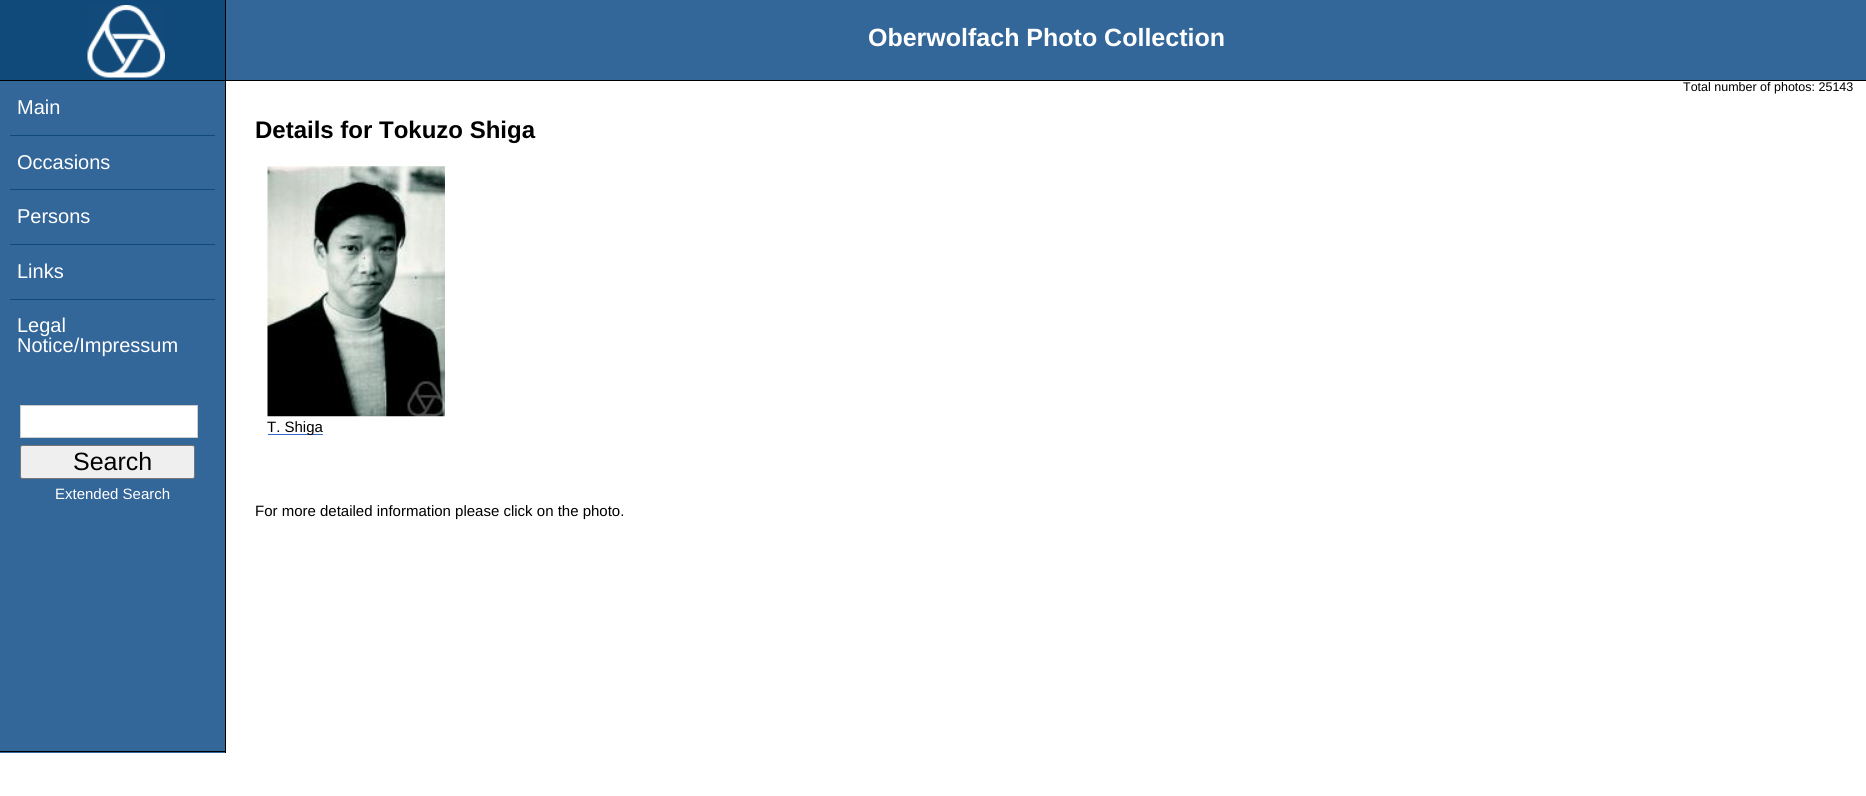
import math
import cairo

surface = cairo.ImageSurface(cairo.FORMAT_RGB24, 1866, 796)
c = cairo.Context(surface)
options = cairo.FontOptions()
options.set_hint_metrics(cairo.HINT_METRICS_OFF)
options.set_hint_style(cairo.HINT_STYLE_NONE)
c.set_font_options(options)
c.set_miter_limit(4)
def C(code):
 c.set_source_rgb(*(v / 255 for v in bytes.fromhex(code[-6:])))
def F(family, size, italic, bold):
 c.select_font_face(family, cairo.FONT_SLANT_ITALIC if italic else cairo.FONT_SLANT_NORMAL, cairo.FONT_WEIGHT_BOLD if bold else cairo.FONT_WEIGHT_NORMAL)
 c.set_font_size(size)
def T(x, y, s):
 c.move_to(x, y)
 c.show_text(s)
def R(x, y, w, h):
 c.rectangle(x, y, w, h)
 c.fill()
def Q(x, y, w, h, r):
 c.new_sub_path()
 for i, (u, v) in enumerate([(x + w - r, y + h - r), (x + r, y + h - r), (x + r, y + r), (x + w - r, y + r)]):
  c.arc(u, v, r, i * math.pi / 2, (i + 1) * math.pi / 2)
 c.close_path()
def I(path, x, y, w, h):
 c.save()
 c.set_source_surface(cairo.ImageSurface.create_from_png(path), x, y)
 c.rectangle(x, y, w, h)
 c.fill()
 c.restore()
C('ffffff')
c.paint()
C('336699')
R(226,0,1640,80)
C('000000')
R(0,80,1866,1)
C('104a7b')
R(0,0,225,80)
C('000000')
R(225,0,1,80)
I('1.png',87,5,78,73)
F('Liberation Sans',25,0,1)
C('ffffff')
T(868,46,'Oberwolfach Photo Collection')
F('Liberation Sans',12.5,0,0)
C('000000')
T(1683,91,'Total number of photos: 25143')
C('336699')
R(0,81,225,672)
C('000000')
R(225,81,1,672)
R(0,751,226,1)
F('Liberation Sans',20,0,0)
C('ffffff')
T(17,114,'Main')
C('104a7b')
R(10,135,205,1)
C('ffffff')
T(17,169,'Occasions')
C('104a7b')
R(10,189,205,1)
C('ffffff')
T(17,223,'Persons')
C('104a7b')
R(10,244,205,1)
C('ffffff')
T(17,278,'Links')
C('104a7b')
R(10,299,205,1)
C('ffffff')
T(17,332,'Legal')
T(17,352,'Notice/Impressum')
c.rectangle(20.5,405.5,177,32)
c.fill_preserve()
C('cccccc')
c.set_line_width(1)
c.stroke()
C('efefef')
Q(20.5,445.5,174,33,2)
c.fill_preserve()
C('767676')
c.stroke()
F('Liberation Sans',25,0,0)
C('000000')
T(73,470,'Search')
F('Liberation Sans',15,0,0)
C('ffffff')
T(55,499,'Extended Search')
F('Liberation Sans',24,0,1)
C('000000')
T(255,138,'Details for Tokuzo Shiga')
I('2.png',267,166,178,251)
C('3366cc')
R(268,434,55,1)
F('Liberation Sans',15,0,0)
C('000000')
T(267,432,'T. Shiga')
T(255,516,'For more detailed information please click on the photo.')
surface.write_to_png('o.png')
